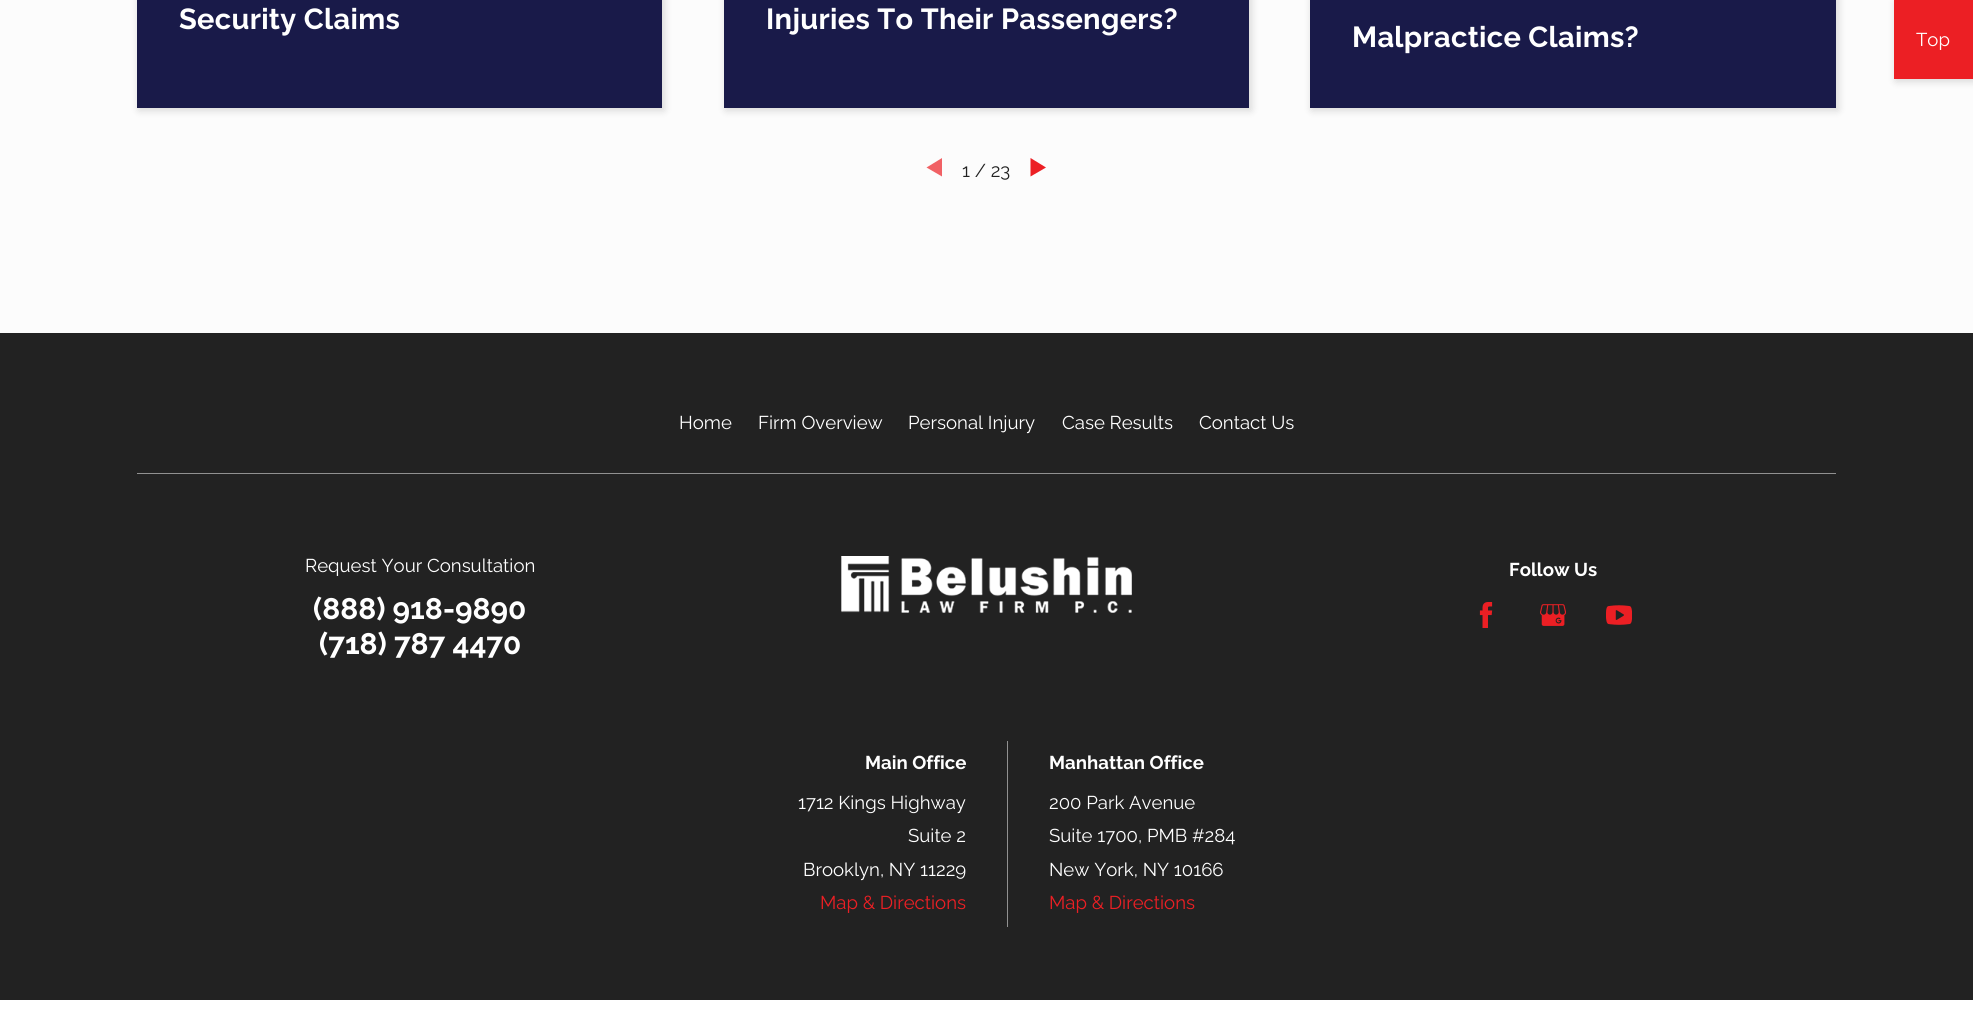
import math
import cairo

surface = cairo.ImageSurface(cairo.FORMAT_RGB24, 1973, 1027)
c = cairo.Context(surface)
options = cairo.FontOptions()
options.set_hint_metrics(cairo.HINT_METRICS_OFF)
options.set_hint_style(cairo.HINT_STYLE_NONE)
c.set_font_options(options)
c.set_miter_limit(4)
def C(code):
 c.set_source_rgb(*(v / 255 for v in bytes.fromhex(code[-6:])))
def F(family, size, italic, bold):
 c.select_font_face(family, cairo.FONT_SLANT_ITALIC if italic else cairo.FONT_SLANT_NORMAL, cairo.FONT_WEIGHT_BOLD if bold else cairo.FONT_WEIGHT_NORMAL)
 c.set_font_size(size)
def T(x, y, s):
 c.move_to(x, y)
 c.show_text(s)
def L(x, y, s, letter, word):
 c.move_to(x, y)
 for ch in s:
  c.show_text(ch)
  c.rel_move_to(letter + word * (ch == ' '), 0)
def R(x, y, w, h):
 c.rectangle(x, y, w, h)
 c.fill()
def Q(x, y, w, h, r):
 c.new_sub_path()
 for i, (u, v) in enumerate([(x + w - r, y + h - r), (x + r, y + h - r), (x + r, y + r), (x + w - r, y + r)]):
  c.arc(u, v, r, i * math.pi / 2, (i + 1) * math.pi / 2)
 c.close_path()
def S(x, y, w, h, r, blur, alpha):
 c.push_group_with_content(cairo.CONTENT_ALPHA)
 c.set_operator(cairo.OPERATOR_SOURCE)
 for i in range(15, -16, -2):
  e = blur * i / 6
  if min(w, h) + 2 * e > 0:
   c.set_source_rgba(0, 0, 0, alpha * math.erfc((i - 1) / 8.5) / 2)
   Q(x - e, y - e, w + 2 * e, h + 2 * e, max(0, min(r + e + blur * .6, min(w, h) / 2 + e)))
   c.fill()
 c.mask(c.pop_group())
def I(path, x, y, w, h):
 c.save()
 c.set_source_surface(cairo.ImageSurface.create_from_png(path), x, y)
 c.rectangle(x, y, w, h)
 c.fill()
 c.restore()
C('ffffff')
c.paint()
C('fcfcfc')
R(0,0,1973,333)
C('000000')
S(139,-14,525,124,0,4.5,.16)
C('191a49')
R(137,0,525,108)
F('Raleway',29,0,1)
C('ffffff')
L(179,29,'Security Claims',.3,0)
C('000000')
S(726,-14,525,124,0,4.5,.16)
C('191a49')
R(724,0,525,108)
C('ffffff')
L(766,29,'Injuries To Their Passengers?',.3,0)
C('000000')
S(1312,-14,526,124,0,4.5,.16)
C('191a49')
R(1310,0,526,108)
C('ffffff')
L(1352,47,'Malpractice Claims?',.3,0)
C('f16165')
c.new_path()
c.move_to(926.5,167.5)
c.line_to(942,158)
c.line_to(942,176.5)
c.close_path()
c.fill()
F('Raleway',18.6,0,0)
C('222222')
T(962,177,'1 / 23')
C('ec1f24')
c.new_path()
c.move_to(1046,167.5)
c.line_to(1030.5,176.5)
c.line_to(1030.5,158)
c.close_path()
c.fill()
C('000000')
S(1896,2,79,79,0,4.5,.16)
C('ec1f24')
R(1894,0,79,79)
C('ffffff')
T(1916,46,'Top')
C('222222')
R(0,333,1973,667)
C('919191')
R(137,473,1699,1)
C('ffffff')
T(679,429,'Home')
T(758,429,'Firm Overview')
T(908,429,'Personal Injury')
T(1062,429,'Case Results')
T(1199,429,'Contact Us')
T(305,572,'Request Your Consultation')
F('Raleway',29.75,0,1)
T(313,619,'(888) 918-9890')
T(319,654,'(718) 787 4470')
I('1.png',841,556,291,57)
F('Raleway',18.6,0,1)
T(1509,576,'Follow Us')
I('2.png',1479,602,14,26)
I('3.png',1540,604,26,22)
I('4.png',1606,605,26,20)
T(865,769,'Main Office')
F('Raleway',18.6,0,0)
T(798,809,'1712 Kings Highway')
T(908,842,'Suite 2')
T(803,876,'Brooklyn, NY 11229')
C('ec1f24')
T(820,909,'Map & Directions')
C('919191')
R(1007,741,1,186)
F('Raleway',18.6,0,1)
C('ffffff')
T(1049,769,'Manhattan Office')
F('Raleway',18.6,0,0)
T(1049,809,'200 Park Avenue')
T(1049,842,'Suite 1700, PMB #284')
T(1049,876,'New York, NY 10166')
C('ec1f24')
T(1049,909,'Map & Directions')
surface.write_to_png('o.png')
